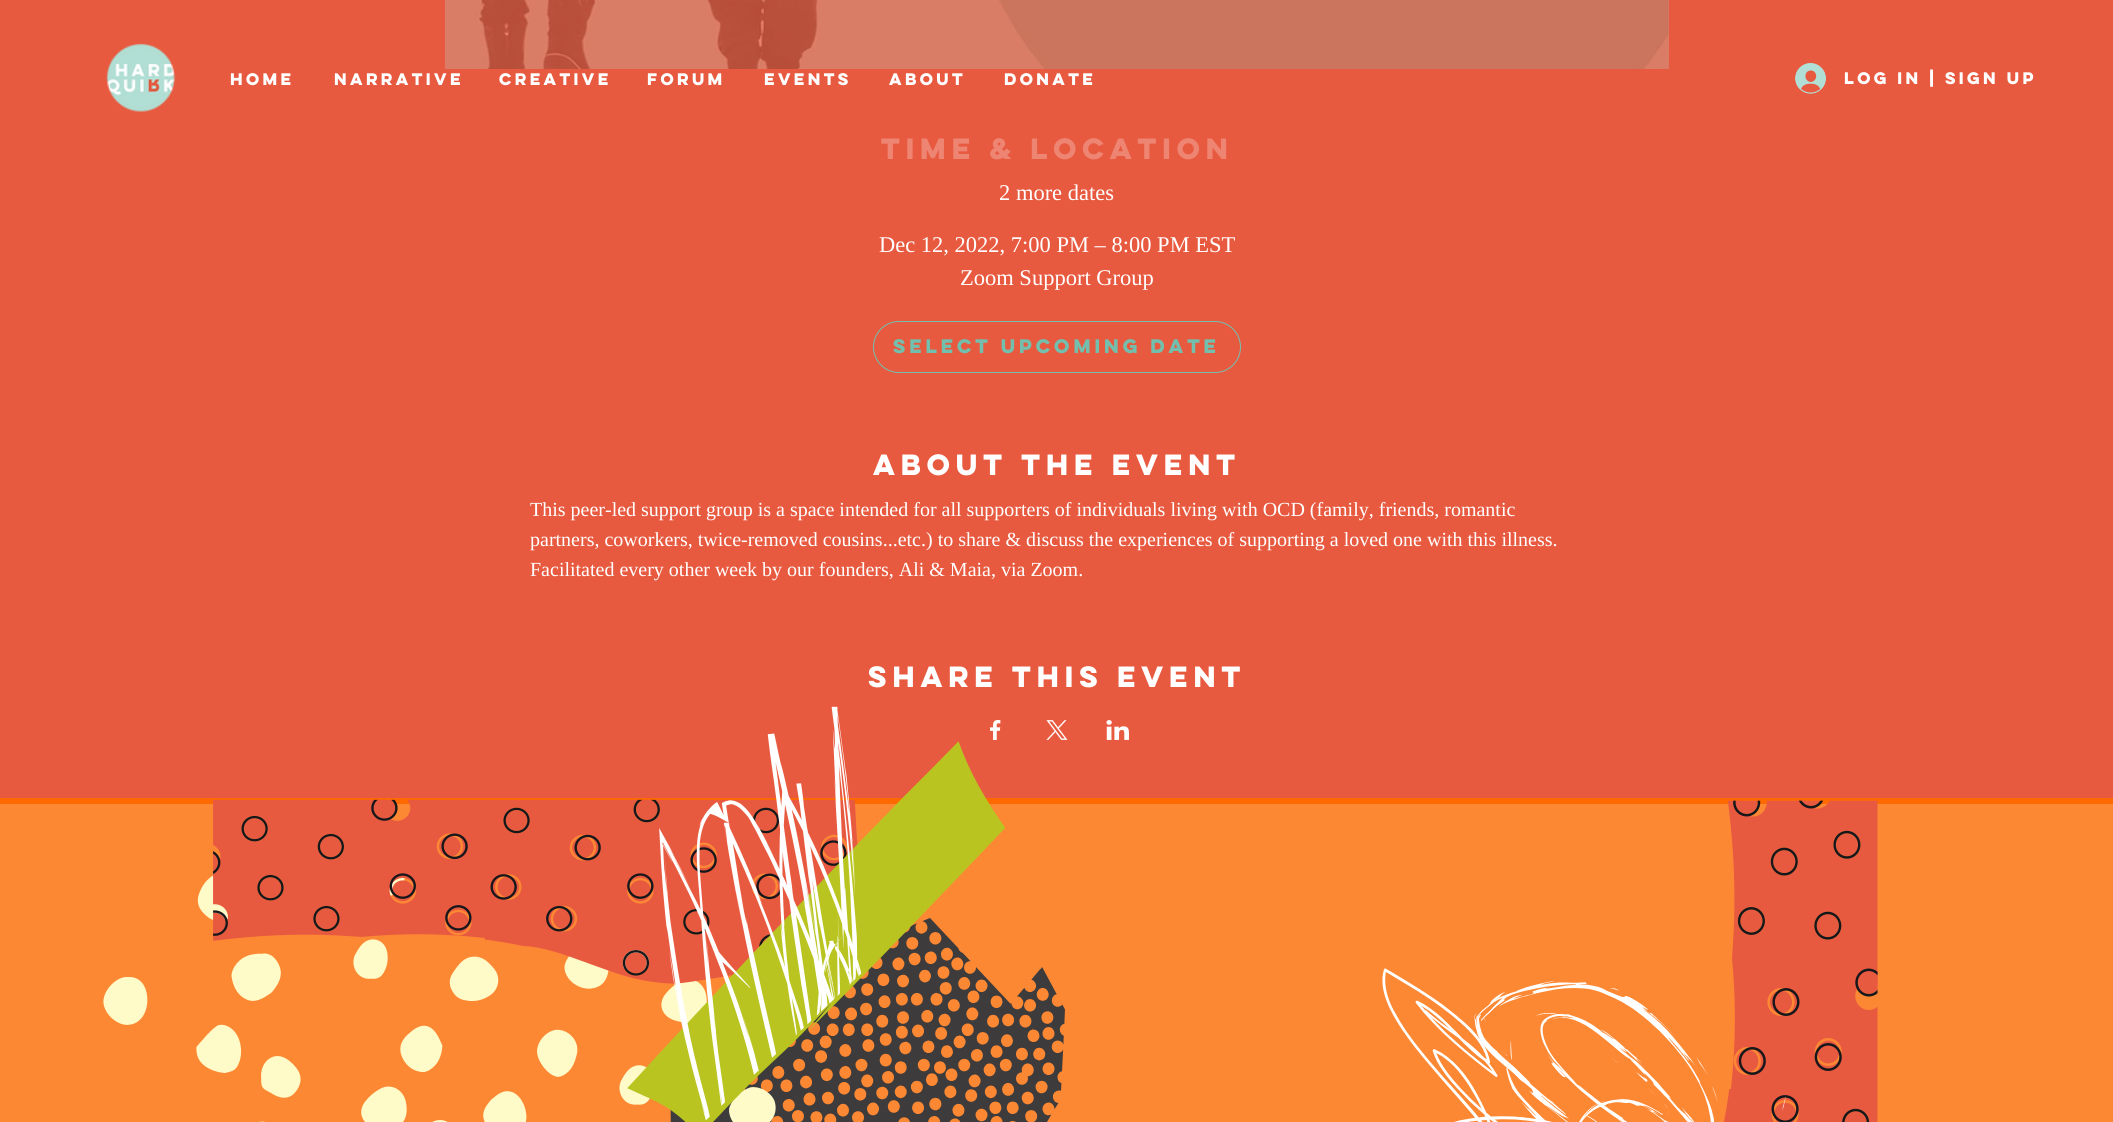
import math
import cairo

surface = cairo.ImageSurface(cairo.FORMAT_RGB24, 2113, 1122)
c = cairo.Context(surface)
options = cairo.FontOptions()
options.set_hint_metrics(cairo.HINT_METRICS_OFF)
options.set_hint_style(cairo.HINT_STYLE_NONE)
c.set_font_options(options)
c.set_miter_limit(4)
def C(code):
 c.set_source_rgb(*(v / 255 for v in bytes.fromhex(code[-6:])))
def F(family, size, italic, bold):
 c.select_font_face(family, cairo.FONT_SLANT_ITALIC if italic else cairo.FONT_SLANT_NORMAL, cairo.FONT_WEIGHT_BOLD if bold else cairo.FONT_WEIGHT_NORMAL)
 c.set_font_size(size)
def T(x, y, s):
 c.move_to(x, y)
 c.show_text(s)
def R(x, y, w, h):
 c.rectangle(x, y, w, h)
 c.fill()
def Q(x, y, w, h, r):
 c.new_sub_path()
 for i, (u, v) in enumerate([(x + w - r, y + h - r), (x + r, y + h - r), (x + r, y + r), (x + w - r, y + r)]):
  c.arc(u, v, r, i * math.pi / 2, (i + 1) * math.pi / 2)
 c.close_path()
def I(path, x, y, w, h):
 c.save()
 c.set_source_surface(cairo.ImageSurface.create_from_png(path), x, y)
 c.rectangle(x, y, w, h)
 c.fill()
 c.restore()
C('e85a40')
c.paint()
I('1.png',106,43,70,69)
F('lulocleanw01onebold',15,0,1)
C('ffffff')
T(230,85,'HOME')
T(334,85,'NARRATIVE')
T(499,85,'CREATIVE')
T(647,85,'FORUM')
T(764,85,'EVENTS')
T(889,85,'ABOUT')
T(1004,85,'DONATE')
I('2.png',1795,63,31,31)
T(1844,84,'Log In | Sign Up')
C('da7d67')
R(445,0,1224,69)
I('3.png',475,0,1194,69)
F('lulocleanw01onebold',26.25,0,1)
C('ee8572')
T(881,159,'Time & Location')
F('Liberation Serif',22.5,0,0)
C('ffffff')
T(999,200,'2 more dates')
T(879,252,'Dec 12, 2022, 7:00 PM – 8:00 PM EST')
T(960,285,'Zoom Support Group')
Q(873.5,321.5,367,51,25.5)
C('72bfae')
c.set_line_width(1)
c.stroke()
F('lulocleanw01onebold',17.5,0,1)
T(893,353,'Select Upcoming Date')
F('lulocleanw01onebold',26.25,0,1)
C('ffffff')
T(873,475,'About the Event')
F('Liberation Serif',20,0,0)
T(530,516,'This peer-led support group is a space intended for all supporters of individuals living with OCD (family, friends, romantic')
T(530,546,'partners, coworkers, twice-removed cousins...etc.) to share & discuss the experiences of supporting a loved one with this illness.')
T(530,576,'Facilitated every other week by our founders, Ali & Maia, via Zoom.')
F('lulocleanw01onebold',26.25,0,1)
T(868,687,'Share This Event')
I('4.png',990,720,11,20)
I('5.png',1046,720,22,20)
I('6.png',1106,720,23,20)
C('fd8834')
R(0,804,2113,318)
I('11.png',670,918,395,204)
I('10.png',103,875,673,247)
C('ff6a00')
R(0,798,2113,6)
I('8.png',213,799,645,185)
I('7.png',627,706,379,416)
I('9.png',1724,800,154,322)
I('12.png',1382,968,404,154)
surface.write_to_png('o.png')
